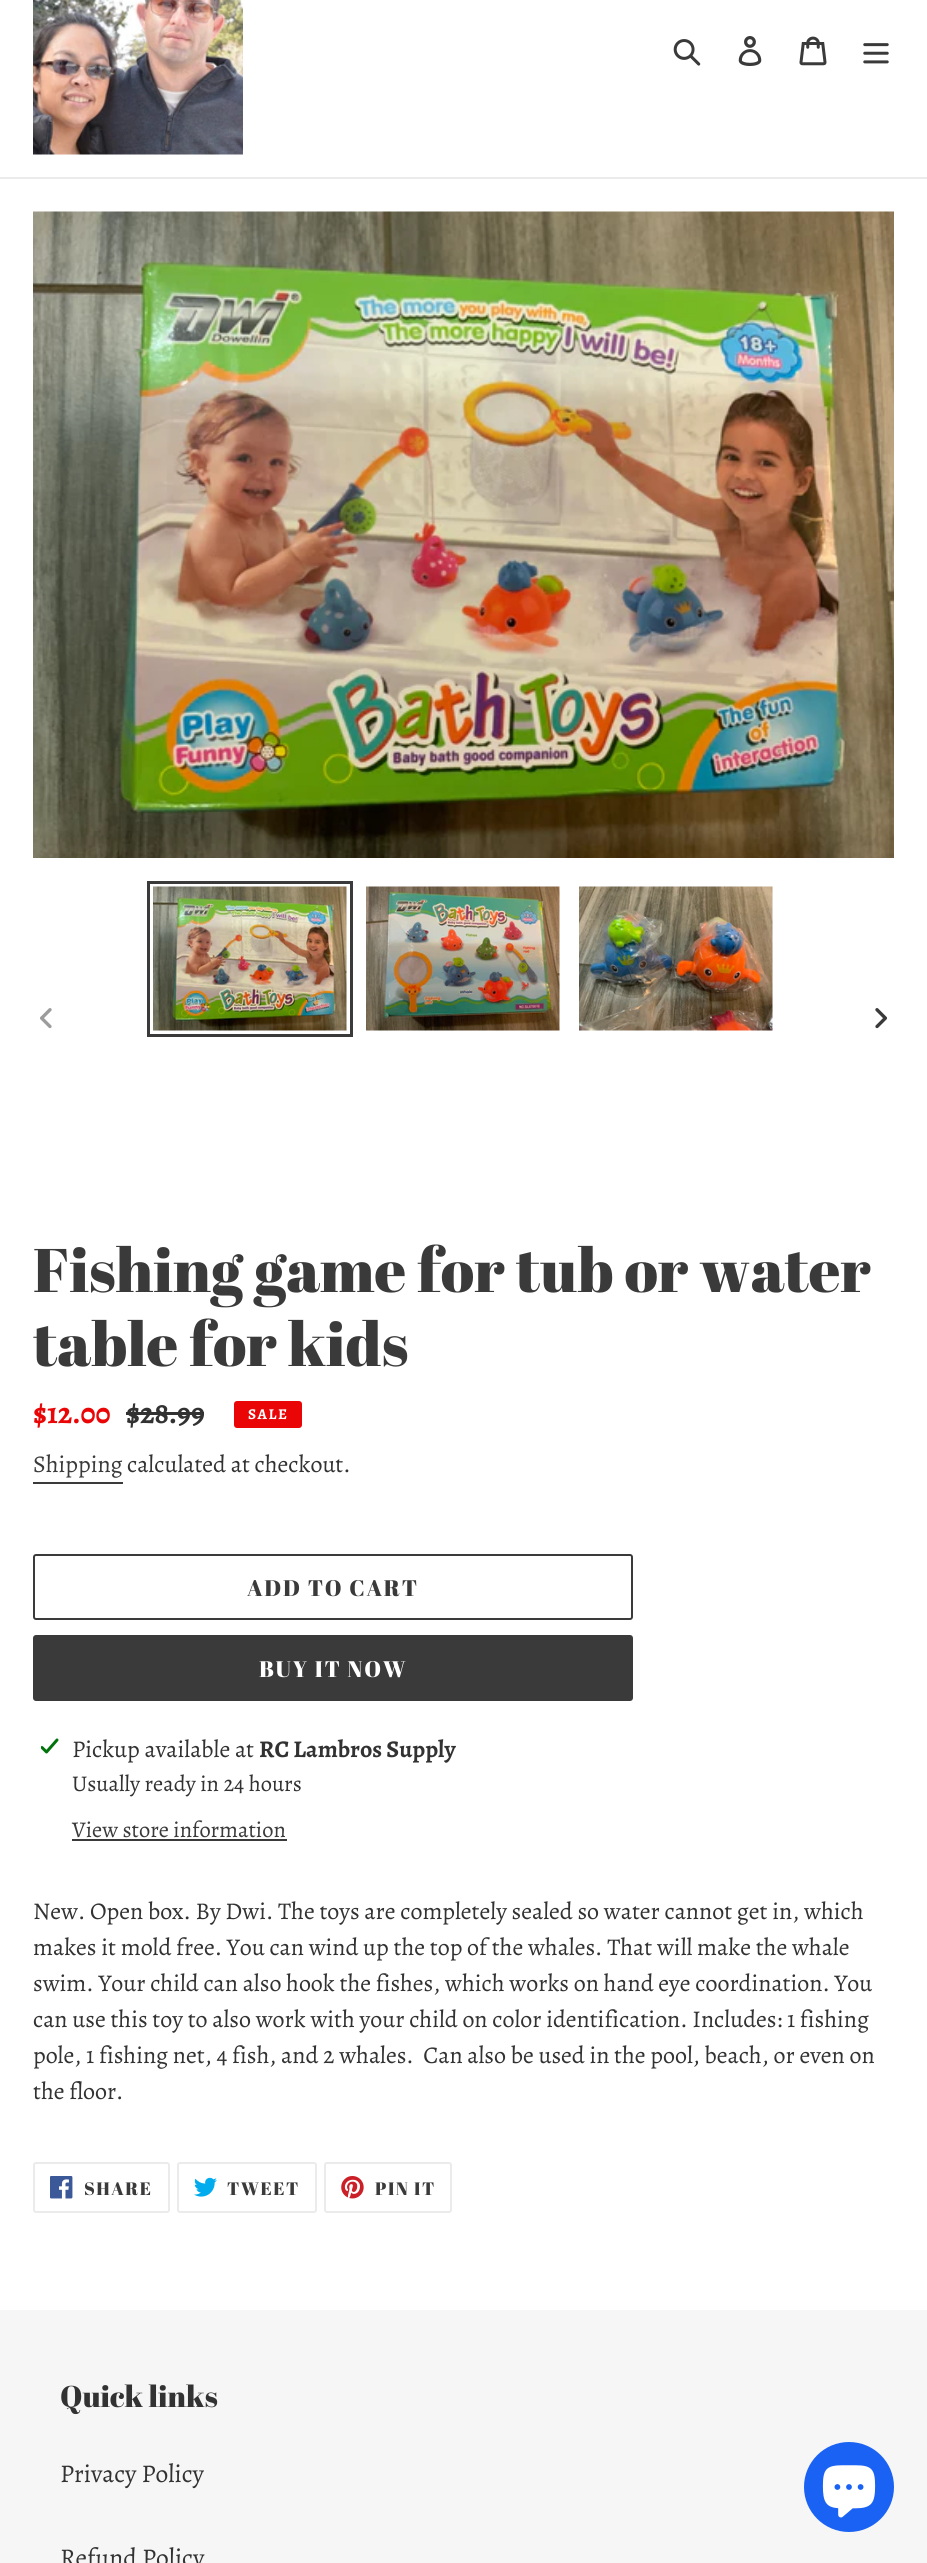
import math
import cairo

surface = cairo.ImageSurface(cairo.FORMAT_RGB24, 927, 2563)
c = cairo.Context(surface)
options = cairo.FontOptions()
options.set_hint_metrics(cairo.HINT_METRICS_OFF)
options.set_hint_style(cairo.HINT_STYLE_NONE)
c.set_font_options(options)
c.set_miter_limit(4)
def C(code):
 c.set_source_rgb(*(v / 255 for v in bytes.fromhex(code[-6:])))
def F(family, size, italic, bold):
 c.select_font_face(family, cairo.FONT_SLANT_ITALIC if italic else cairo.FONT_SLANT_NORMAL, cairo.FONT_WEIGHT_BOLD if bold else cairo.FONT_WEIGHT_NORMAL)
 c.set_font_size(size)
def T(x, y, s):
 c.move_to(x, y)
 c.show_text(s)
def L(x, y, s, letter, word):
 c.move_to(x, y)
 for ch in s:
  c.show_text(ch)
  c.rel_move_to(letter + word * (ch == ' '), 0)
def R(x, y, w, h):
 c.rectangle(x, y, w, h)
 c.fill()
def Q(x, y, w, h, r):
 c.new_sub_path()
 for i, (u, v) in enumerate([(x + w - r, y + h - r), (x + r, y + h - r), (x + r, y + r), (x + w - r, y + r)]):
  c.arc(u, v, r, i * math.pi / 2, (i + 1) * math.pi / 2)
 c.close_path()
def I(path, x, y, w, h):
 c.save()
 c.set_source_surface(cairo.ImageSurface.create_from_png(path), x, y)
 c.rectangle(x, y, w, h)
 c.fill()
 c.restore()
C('ffffff')
c.paint()
C('ebebeb')
R(0,177,927,2)
I('1.png',33,0,210,155)
I('2.png',673,39,28,27)
I('3.png',738,36,24,30)
I('4.png',799,36,28,30)
I('5.png',863,43,26,21)
I('6.png',33,211,861,647)
I('7.png',40,1008,12,21)
c.rectangle(148.5,882.5,203,153)
C('3a3a3a')
c.set_line_width(3)
c.stroke()
I('8.png',153,886,194,145)
I('9.png',366,886,194,145)
I('10.png',579,886,194,145)
I('11.png',875,1008,13,21)
F('Abril Fatface',61.5,0,0)
T(33,1292,'Fishing game for tub or water')
T(33,1366,'table for kids')
F('Alegreya',30,0,1)
C('ea0606')
T(33,1423,'$12.00')
C('333232')
T(126,1423,'$28.99')
R(126,1412,78,3)
C('ea0606')
Q(235,1402,66,25,2)
c.fill_preserve()
c.set_line_width(2)
c.stroke()
F('Alegreya',15,0,1)
C('ffffff')
L(248,1419,'SALE',1.5,0)
F('Alegreya',24,0,0)
C('3a3a3a')
T(33,1472,'Shipping')
R(33,1482,90,2)
C('333232')
T(127,1472,'calculated at checkout.')
Q(34,1555,598,64,2)
C('3a3a3a')
c.stroke()
F('Abril Fatface',22.5,0,0)
L(247,1596,'ADD TO CART',1.75,0)
Q(33,1635,600,66,3)
c.fill()
C('ffffff')
L(259,1677,'BUY IT NOW',1.75,0)
I('12.png',41,1738,18,16)
F('Alegreya',24,0,0)
C('333232')
T(72,1757,'Pickup available at')
F('Alegreya',24,0,1)
T(259,1757,'RC Lambros Supply')
F('Alegreya',22.5,0,0)
T(72,1791,'Usually ready in 24 hours')
C('3a3a3a')
T(72,1837,'View store information')
R(72,1839,215,2)
F('Alegreya',24,0,0)
C('333232')
T(33,1919,'New. Open box. By Dwi. The toys are completely sealed so water cannot get in, which')
T(33,1955,'makes it mold free. You can wind up the top of the whales. That will make the whale')
T(33,1991,'swim. Your child can also hook the fishes, which works on hand eye coordination. You')
T(33,2027,'can use this toy to also work with your child on color identification. Includes: 1 fishing')
T(33,2063,'pole, 1 fishing net, 4 fish, and 2 whales.  Can also be used in the pool, beach, or even on')
T(33,2099,'the floor.')
Q(34,2163,135,49,2)
C('ebebeb')
c.stroke()
I('13.png',50,2176,23,23)
F('Abril Fatface',18,0,0)
C('3a3a3a')
L(84,2195,'SHARE',1.5,0)
Q(178,2163,138,49,2)
C('ebebeb')
c.stroke()
I('14.png',194,2177,23,20)
C('3a3a3a')
L(227,2195,'TWEET',1.5,0)
Q(325,2163,126,49,2)
C('ebebeb')
c.stroke()
I('15.png',341,2176,23,23)
C('3a3a3a')
L(375,2195,'PIN IT',1.5,0)
C('f6f6f6')
R(0,2310,927,253)
F('Abril Fatface',30,0,0)
C('333232')
T(60,2407,'Quick links')
F('Alegreya',25.5,0,0)
T(60,2482,'Privacy Policy')
T(60,2566,'Refund Policy')
C('1a62f3')
c.new_path()
c.arc(849,2487,45,0,2 * math.pi)
c.fill()
I('16.png',822,2465,54,53)
surface.write_to_png('o.png')
